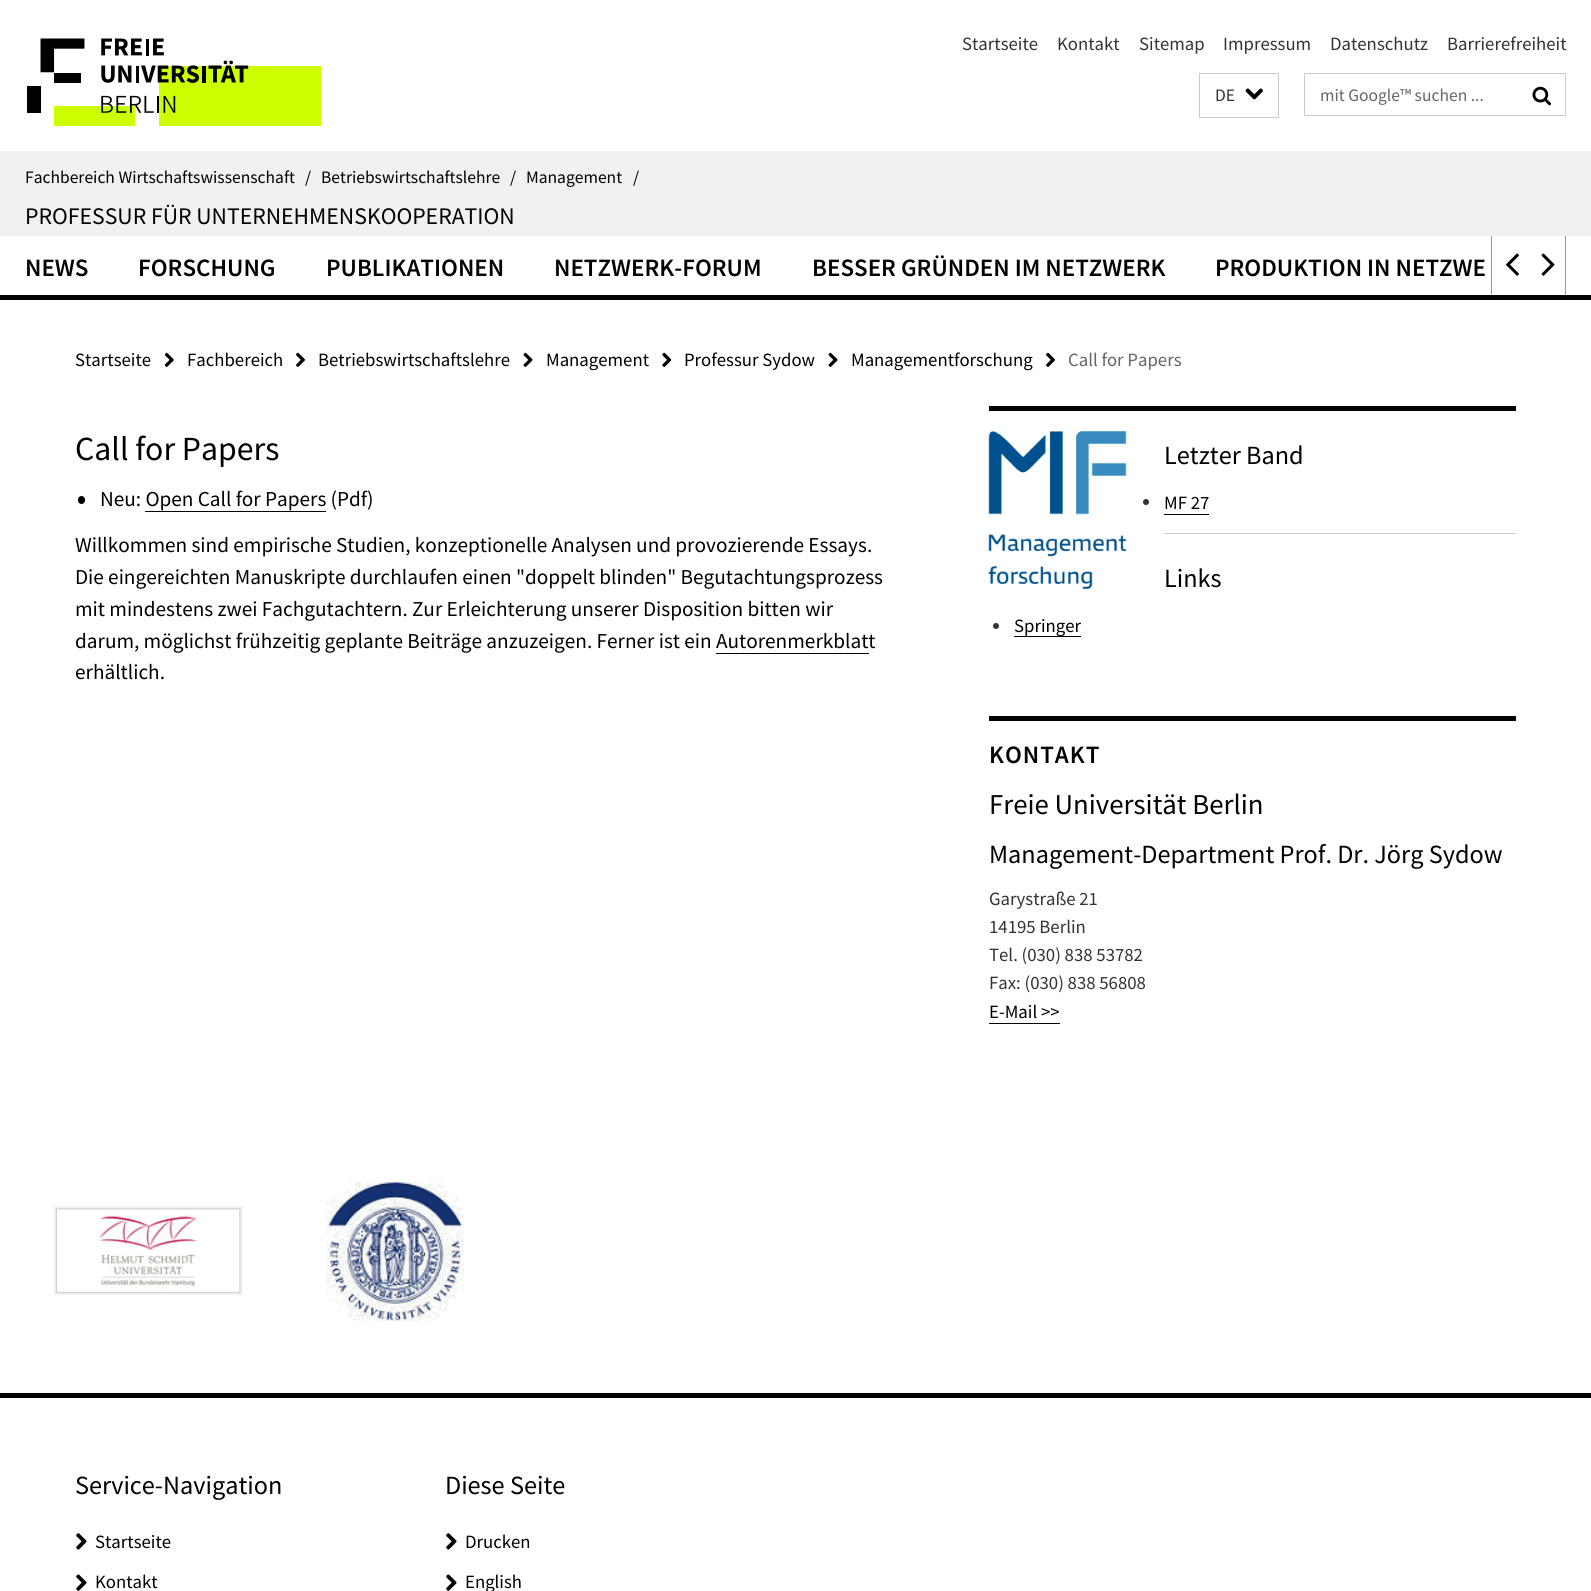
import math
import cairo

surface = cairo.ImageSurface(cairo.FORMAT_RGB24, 1591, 1591)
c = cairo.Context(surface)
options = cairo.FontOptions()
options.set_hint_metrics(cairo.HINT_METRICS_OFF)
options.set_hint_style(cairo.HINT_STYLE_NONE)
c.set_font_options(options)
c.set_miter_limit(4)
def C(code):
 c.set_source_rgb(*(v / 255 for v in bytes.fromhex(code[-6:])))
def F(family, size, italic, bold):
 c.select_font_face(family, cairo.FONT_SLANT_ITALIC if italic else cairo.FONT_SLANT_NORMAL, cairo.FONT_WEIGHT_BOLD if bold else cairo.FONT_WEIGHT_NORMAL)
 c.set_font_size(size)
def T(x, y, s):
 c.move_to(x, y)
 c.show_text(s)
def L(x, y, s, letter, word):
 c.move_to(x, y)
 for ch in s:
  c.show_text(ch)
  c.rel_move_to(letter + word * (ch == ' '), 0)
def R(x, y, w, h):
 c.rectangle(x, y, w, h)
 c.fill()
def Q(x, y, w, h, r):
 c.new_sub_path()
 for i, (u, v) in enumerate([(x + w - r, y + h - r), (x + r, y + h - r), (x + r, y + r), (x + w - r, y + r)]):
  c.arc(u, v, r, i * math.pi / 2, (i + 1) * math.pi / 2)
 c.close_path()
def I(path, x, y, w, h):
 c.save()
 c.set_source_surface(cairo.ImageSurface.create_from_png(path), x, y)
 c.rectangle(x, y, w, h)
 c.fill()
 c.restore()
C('ffffff')
c.paint()
I('1.png',27,38,294,88)
F('Source Sans Pro',18.75,0,0)
C('333333')
T(962,50,'Startseite')
T(1057,50,'Kontakt')
T(1139,50,'Sitemap')
T(1223,50,'Impressum')
T(1330,50,'Datenschutz')
T(1447,50,'Barrierefreiheit')
c.rectangle(1199.5,73.5,79,44)
C('cccccc')
c.set_line_width(1)
c.stroke()
F('Source Sans Pro',17.5,0,0)
C('333333')
T(1215,101,'DE')
I('2.png',1245,88,18,12)
c.rectangle(1304.5,73.5,261,42)
C('cccccc')
c.stroke()
C('666666')
T(1320,101,'mit Google™ suchen ...')
I('3.png',1532,86,19,20)
C('f1f1f1')
R(0,151,1591,85)
C('000000')
T(25,183,'Fachbereich Wirtschaftswissenschaft')
T(305,183,'/')
T(321,183,'Betriebswirtschaftslehre')
T(510,183,'/')
T(526,183,'Management')
T(633,183,'/')
F('Source Sans Pro',23.75,0,0)
T(25,224,'PROFESSUR FÜR UNTERNEHMENSKOOPERATION')
R(0,295,1591,5)
F('Source Sans Pro SemiBold',25,0,0)
T(25,276,'NEWS')
T(138,276,'FORSCHUNG')
T(326,276,'PUBLIKATIONEN')
T(554,276,'NETZWERK-FORUM')
T(812,276,'BESSER GRÜNDEN IM NETZWERK')
T(1215,276,'PRODUKTION IN NETZWE')
C('999999')
R(1491,236,1,59)
I('4.png',1506,253,13,23)
R(1565,236,1,59)
I('5.png',1541,253,14,23)
F('Source Sans Pro',18.75,0,0)
C('000000')
T(75,366,'Startseite')
I('6.png',164,352,10,15)
T(187,366,'Fachbereich')
I('7.png',296,352,9,15)
T(318,366,'Betriebswirtschaftslehre')
I('8.png',523,352,10,15)
T(546,366,'Management')
I('9.png',662,352,10,15)
T(684,366,'Professur Sydow')
I('8.png',828,352,10,15)
T(851,366,'Managementforschung')
I('7.png',1046,352,9,15)
C('666666')
T(1068,366,'Call for Papers')
F('Source Sans Pro',33.75,0,0)
C('000000')
T(75,460,'Call for Papers')
Q(78,496,7,8,3.5)
c.fill()
F('Source Sans Pro',21.25,0,0)
T(100,506,'Neu: Open Call for Papers (Pdf)')
R(145,511,181,1)
T(75,552,'Willkommen sind empirische Studien, konzeptionelle Analysen und provozierende Essays.')
T(75,584,'Die eingereichten Manuskripte durchlaufen einen "doppelt blinden" Begutachtungsprozess')
T(75,616,'mit mindestens zwei Fachgutachtern. Zur Erleichterung unserer Disposition bitten wir')
T(75,648,'darum, möglichst frühzeitig geplante Beiträge anzuzeigen. Ferner ist ein Autorenmerkblatt')
R(716,653,153,1)
T(75,679,'erhältlich.')
R(989,406,527,5)
I('10.png',988,431,139,158)
F('Source Sans Pro',26.25,0,0)
T(1164,464,'Letzter Band')
C('333333')
c.new_path()
c.arc(1146,502,3,0,2 * math.pi)
c.fill()
F('Source Sans Pro',18.75,0,0)
C('000000')
T(1164,509,'MF 27')
R(1164,514,45,1)
C('cccccc')
R(1164,533,352,1)
F('Source Sans Pro',26.25,0,0)
C('000000')
T(1164,587,'Links')
C('333333')
c.new_path()
c.arc(996,626,3,0,2 * math.pi)
c.fill()
C('000000')
R(1014,636,67,1)
F('Source Sans Pro',18.75,0,0)
T(1014,632,'Springer')
R(989,716,527,5)
F('Source Sans Pro SemiBold',25,0,0)
L(989,763,'KONTAKT',1,0)
F('Source Sans Pro',28.75,0,0)
T(989,814,'Freie Universität Berlin')
F('Source Sans Pro',26.25,0,0)
T(989,863,'Management-Department Prof. Dr. Jörg Sydow')
F('Source Sans Pro',18.75,0,0)
C('333333')
T(989,905,'Garystraße 21')
T(989,933,'14195 Berlin')
T(989,961,'Tel. (030) 838 53782')
T(989,989,'Fax: (030) 838 56808')
C('000000')
T(989,1018,'E-Mail >>')
R(989,1023,71,1)
I('11.png',54,1206,189,89)
I('12.png',326,1181,138,141)
R(0,1393,1591,5)
F('Source Sans Pro',26.25,0,0)
T(75,1494,'Service-Navigation')
I('13.png',76,1533,11,17)
F('Source Sans Pro',18.75,0,0)
T(95,1548,'Startseite')
I('14.png',76,1574,11,17)
T(95,1588,'Kontakt')
F('Source Sans Pro',26.25,0,0)
T(445,1494,'Diese Seite')
I('13.png',446,1533,11,17)
F('Source Sans Pro',18.75,0,0)
T(465,1548,'Drucken')
I('14.png',446,1574,11,17)
T(465,1588,'English')
surface.write_to_png('o.png')
